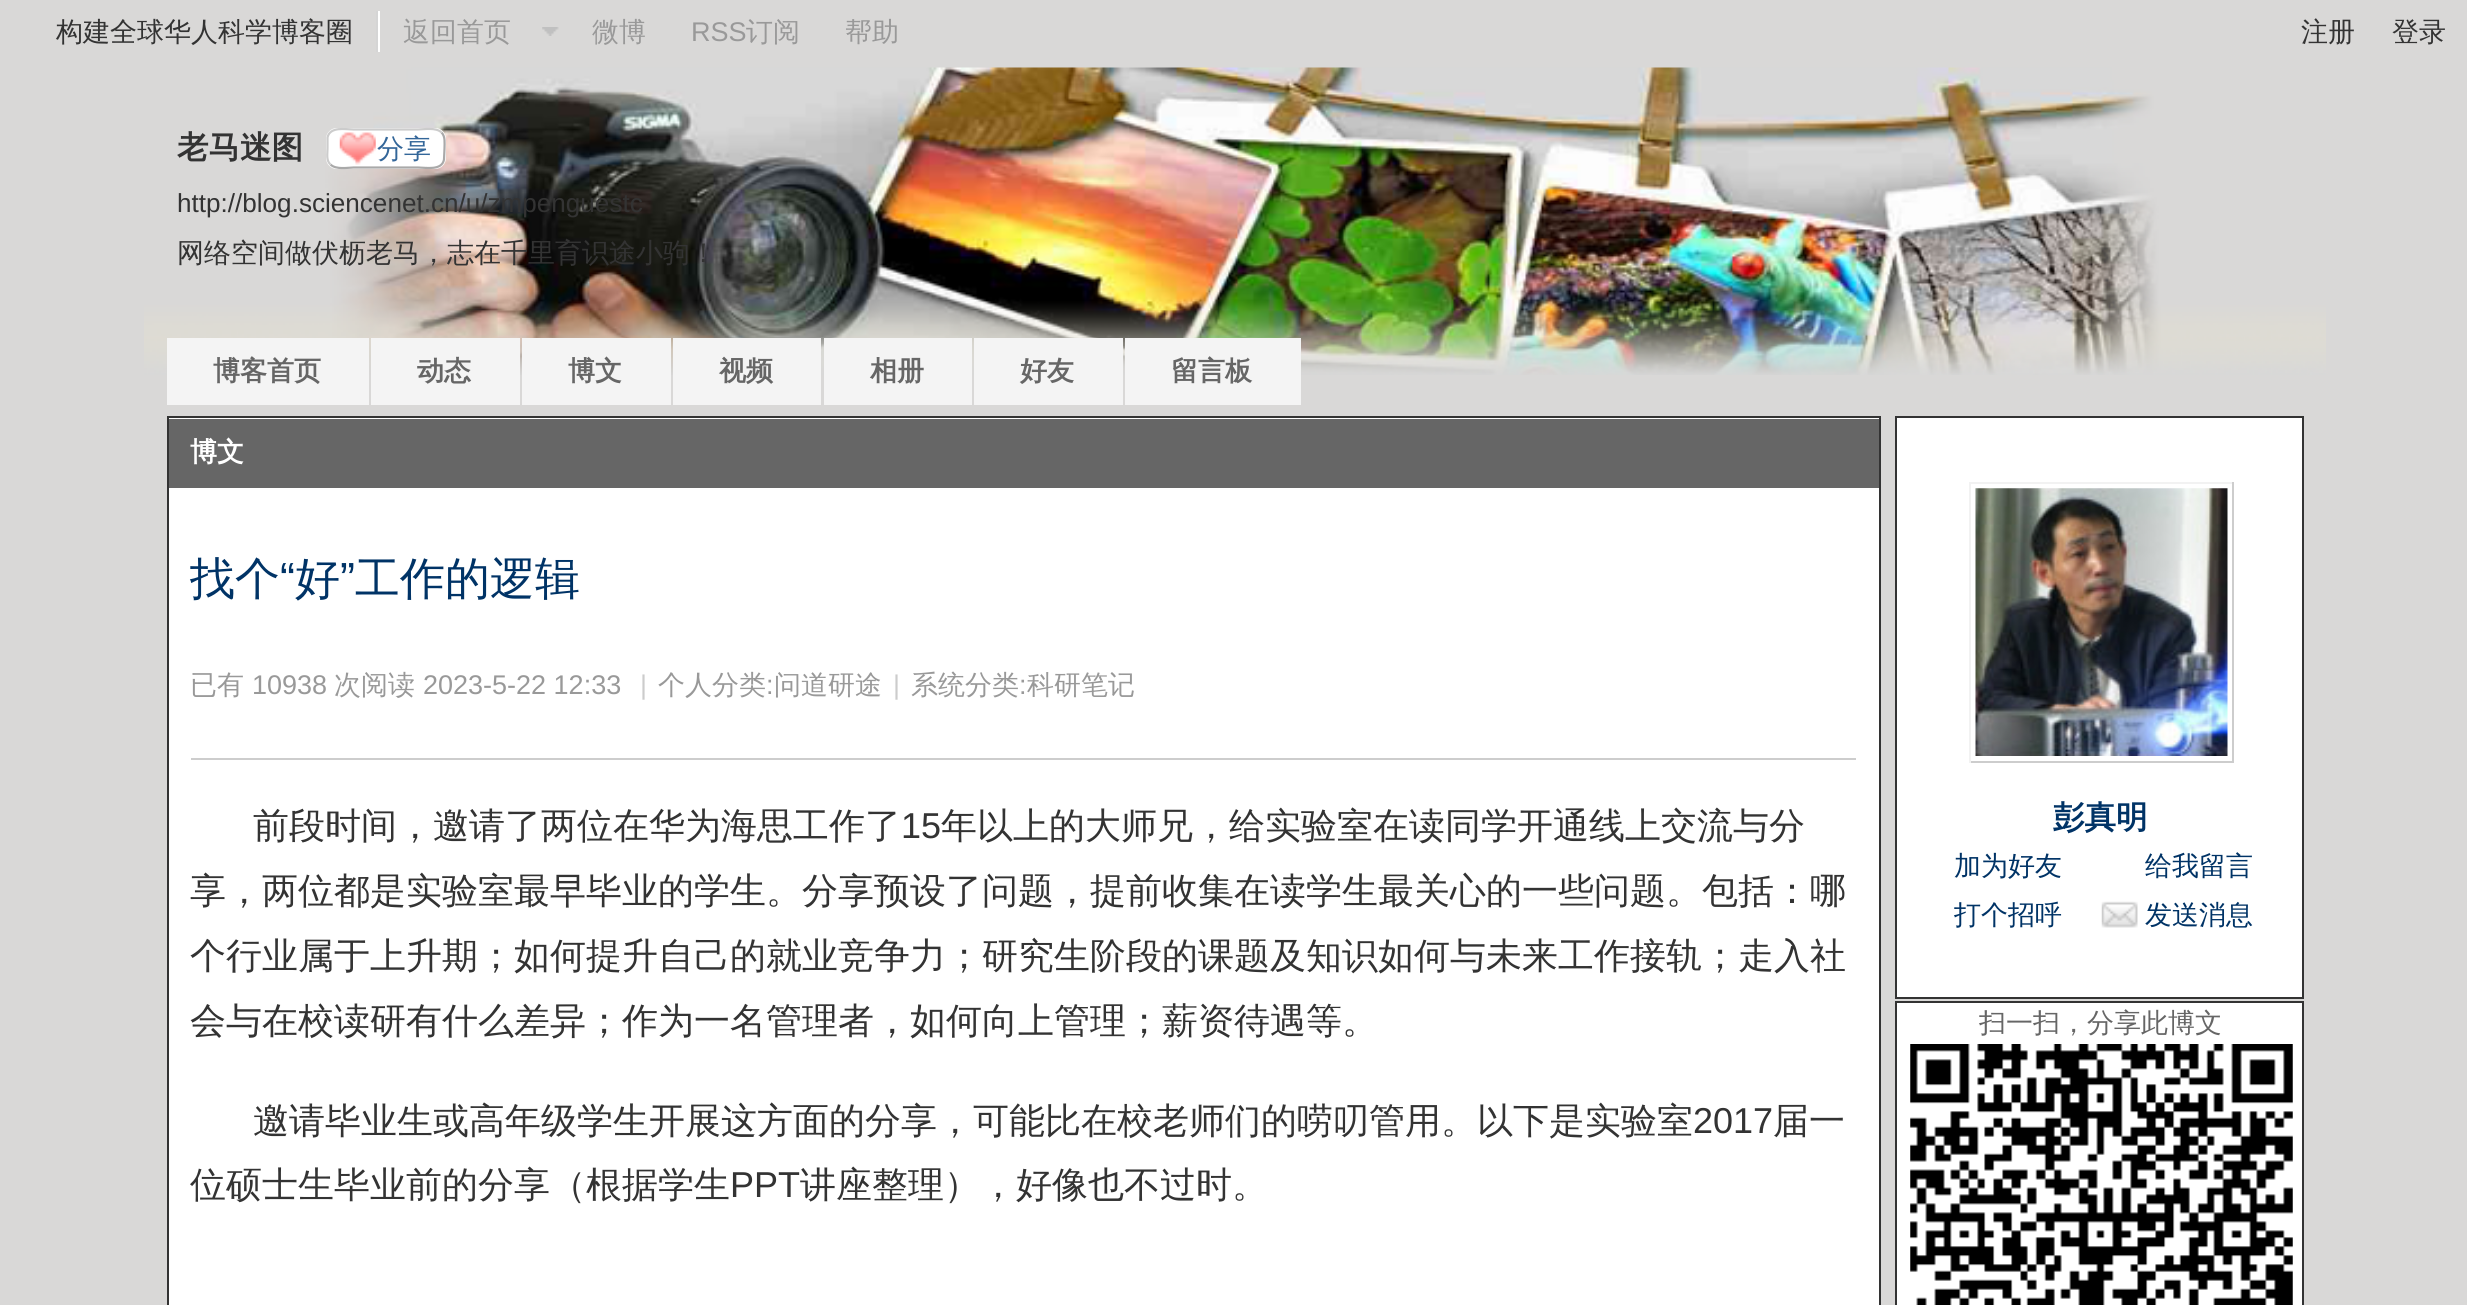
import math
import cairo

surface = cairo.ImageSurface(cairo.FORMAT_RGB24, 2467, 1305)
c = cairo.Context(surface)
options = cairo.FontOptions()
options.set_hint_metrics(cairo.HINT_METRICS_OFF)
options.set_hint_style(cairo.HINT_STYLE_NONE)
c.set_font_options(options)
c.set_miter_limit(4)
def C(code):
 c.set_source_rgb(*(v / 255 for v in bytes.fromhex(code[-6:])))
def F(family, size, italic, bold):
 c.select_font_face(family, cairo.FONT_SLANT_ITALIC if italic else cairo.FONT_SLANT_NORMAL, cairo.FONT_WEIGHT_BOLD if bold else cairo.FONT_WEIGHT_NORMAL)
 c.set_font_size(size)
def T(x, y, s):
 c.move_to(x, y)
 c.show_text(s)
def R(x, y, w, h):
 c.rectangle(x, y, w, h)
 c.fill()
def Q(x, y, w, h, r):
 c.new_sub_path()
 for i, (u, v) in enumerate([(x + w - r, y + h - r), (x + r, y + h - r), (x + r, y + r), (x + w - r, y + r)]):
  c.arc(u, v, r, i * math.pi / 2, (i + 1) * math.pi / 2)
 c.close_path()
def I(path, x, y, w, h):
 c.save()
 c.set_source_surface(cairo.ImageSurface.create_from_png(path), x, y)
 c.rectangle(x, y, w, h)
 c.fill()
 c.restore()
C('d9d8d7')
c.paint()
C('ffffff')
R(378,11,2,41)
C('d5d5d5')
R(376,11,2,41)
F('WenQuanYi Zen Hei Medium',27,0,0)
C('333333')
T(56,41,'构建全球华人科学博客圈')
C('999999')
T(403,41,'返回首页')
I('1.png',542,27,17,9)
T(592,41,'微博')
F('Liberation Sans',27,0,0)
T(691,41,'RSS')
F('WenQuanYi Zen Hei Medium',27,0,0)
T(746,41,'订阅')
T(845,41,'帮助')
C('333333')
T(2301,41,'注册')
T(2392,41,'登录')
I('2.png',144,67,2182,308)
F('WenQuanYi Zen Hei',31.5,0,1)
T(177,158,'老马迷图')
C('ffffff')
Q(326,128,120,41,11)
c.fill()
I('3.png',339,132,37,33)
c.new_path()
c.move_to(441.5,132.5)
c.curve_to(445.5,136.5,444.5,143,444.5,148.5)
c.line_to(444,159.5)
c.curve_to(442,171,425.5,167.5,418,167.5)
c.line_to(353.5,167.5)
c.curve_to(348.5,167.5,336,170,330.5,164.5)
C('a9a9a9')
c.set_line_width(2.2)
c.stroke()
c.new_path()
c.move_to(330.5,164.5)
c.curve_to(326,160.5,327.5,154,327.5,148.5)
c.line_to(327.5,137.5)
c.curve_to(330,126,346,129.5,353.5,129.5)
c.line_to(418,129.5)
c.curve_to(423.5,129.5,436,127,441.5,132.5)
C('cccccc')
c.stroke()
F('WenQuanYi Zen Hei Medium',27,0,0)
C('336699')
T(377,158,'分享')
F('Liberation Sans',26.1,0,0)
C('333333')
T(177,212,'http://blog.sciencenet.cn/u/zmpenguestc')
F('WenQuanYi Zen Hei Medium',27,0,0)
T(177,262,'网络空间做伏枥老马，志在千里育识途小驹！')
C('f4f4f4')
R(167,338,202,67)
F('WenQuanYi Zen Hei',27,0,1)
C('666666')
T(213,380,'博客首页')
C('f4f4f4')
R(371,338,149,67)
C('666666')
T(417,380,'动态')
C('f4f4f4')
R(522,338,149,67)
C('666666')
T(568,380,'博文')
C('f4f4f4')
R(673,338,148,67)
C('666666')
T(719,380,'视频')
C('f4f4f4')
R(824,338,148,67)
C('666666')
T(870,380,'相册')
C('f4f4f4')
R(974,338,149,67)
C('666666')
T(1020,380,'好友')
C('f4f4f4')
R(1125,338,176,67)
C('666666')
T(1171,380,'留言板')
C('ffffff')
c.rectangle(168,417,1712,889)
c.fill_preserve()
C('333333')
c.set_line_width(2)
c.stroke()
C('666666')
R(169,419,1710,69)
C('ffffff')
T(190,461,'博文')
C('cdcdcd')
R(191,758,1665,2)
F('WenQuanYi Zen Hei Medium',45,0,0)
C('003366')
T(190,594,'找个')
F('Liberation Sans',45,0,0)
T(280,594,'“')
F('WenQuanYi Zen Hei Medium',45,0,0)
T(295,594,'好')
F('Liberation Sans',45,0,0)
T(340,594,'”')
F('WenQuanYi Zen Hei Medium',45,0,0)
T(355,594,'工作的逻辑')
F('WenQuanYi Zen Hei Medium',27,0,0)
C('999999')
T(190,694,'已有')
F('Liberation Sans',27,0,0)
T(252,694,'10938')
F('WenQuanYi Zen Hei Medium',27,0,0)
T(334,694,'次阅读')
F('Liberation Sans',27,0,0)
T(423,694,'2023-5-22 12:33')
C('cccccc')
T(640,694,'|')
F('WenQuanYi Zen Hei Medium',27,0,0)
C('999999')
T(658,694,'个人分类')
F('Liberation Sans',27,0,0)
T(766,694,':')
F('WenQuanYi Zen Hei Medium',27,0,0)
T(774,694,'问道研途')
F('Liberation Sans',27,0,0)
C('cccccc')
T(893,694,'|')
F('WenQuanYi Zen Hei Medium',27,0,0)
C('999999')
T(911,694,'系统分类')
F('Liberation Sans',27,0,0)
T(1019,694,':')
F('WenQuanYi Zen Hei Medium',27,0,0)
T(1027,694,'科研笔记')
F('WenQuanYi Zen Hei Medium',36,0,0)
C('333333')
T(253,838,'前段时间，邀请了两位在华为海思工作了')
F('Liberation Sans',36,0,0)
T(901,838,'15')
F('WenQuanYi Zen Hei Medium',36,0,0)
T(941,838,'年以上的大师兄，给实验室在读同学开通线上交流与分')
T(190,903,'享，两位都是实验室最早毕业的学生。分享预设了问题，提前收集在读学生最关心的一些问题。包括：哪')
T(190,968,'个行业属于上升期；如何提升自己的就业竞争力；研究生阶段的课题及知识如何与未来工作接轨；走入社')
T(190,1033,'会与在校读研有什么差异；作为一名管理者，如何向上管理；薪资待遇等。')
T(253,1133,'邀请毕业生或高年级学生开展这方面的分享，可能比在校老师们的唠叨管用。以下是实验室')
F('Liberation Sans',36,0,0)
T(1693,1133,'2017')
F('WenQuanYi Zen Hei Medium',36,0,0)
T(1773,1133,'届一')
T(190,1197,'位硕士生毕业前的分享（根据学生')
F('Liberation Sans',36,0,0)
T(730,1197,'PPT')
F('WenQuanYi Zen Hei Medium',36,0,0)
T(800,1197,'讲座整理），好像也不过时。')
C('ffffff')
c.rectangle(1896,417,407,581)
c.fill_preserve()
C('333333')
c.stroke()
C('f2f2f2')
R(1969,482,265,2)
C('cdcdcd')
R(2232,482,2,281)
R(1969,761,265,2)
C('f2f2f2')
R(1969,482,2,281)
I('4.png',1975,488,253,268)
F('WenQuanYi Zen Hei',31.5,0,1)
C('003366')
T(2053,828,'彭真明')
F('WenQuanYi Zen Hei Medium',27,0,0)
T(1954,875,'加为好友')
T(2145,875,'给我留言')
T(1954,924,'打个招呼')
I('5.png',2101,901,37,27)
T(2145,924,'发送消息')
C('ffffff')
c.rectangle(1896,1002,407,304)
c.fill_preserve()
C('333333')
c.stroke()
C('666666')
T(1979,1032,'扫一扫，分享此博文')
I('6.png',1910,1044,383,261)
surface.write_to_png('o.png')
